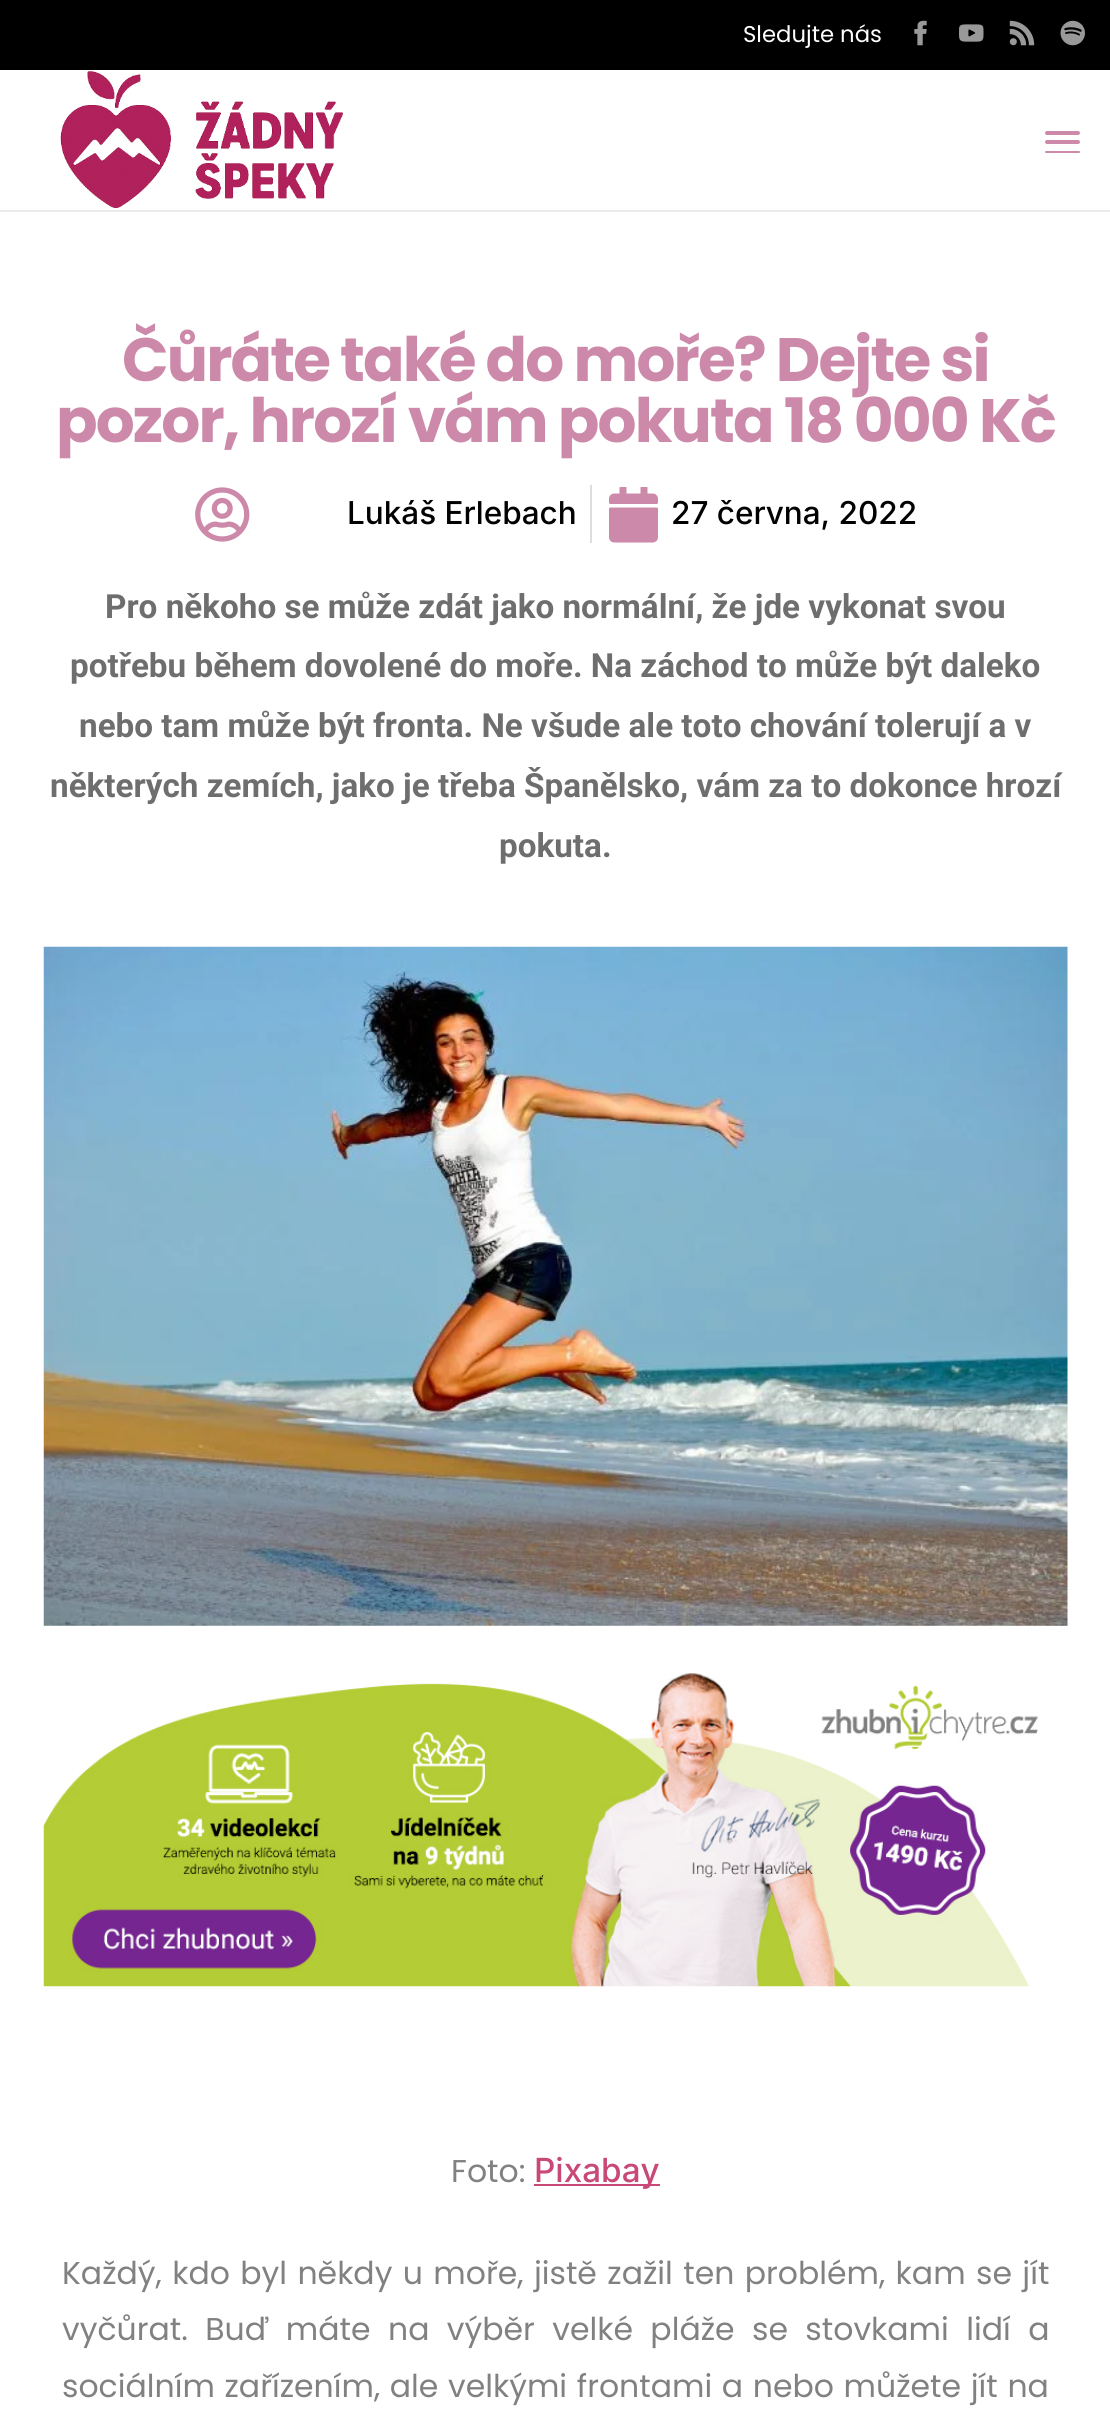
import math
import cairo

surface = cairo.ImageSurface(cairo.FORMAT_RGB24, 1110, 2415)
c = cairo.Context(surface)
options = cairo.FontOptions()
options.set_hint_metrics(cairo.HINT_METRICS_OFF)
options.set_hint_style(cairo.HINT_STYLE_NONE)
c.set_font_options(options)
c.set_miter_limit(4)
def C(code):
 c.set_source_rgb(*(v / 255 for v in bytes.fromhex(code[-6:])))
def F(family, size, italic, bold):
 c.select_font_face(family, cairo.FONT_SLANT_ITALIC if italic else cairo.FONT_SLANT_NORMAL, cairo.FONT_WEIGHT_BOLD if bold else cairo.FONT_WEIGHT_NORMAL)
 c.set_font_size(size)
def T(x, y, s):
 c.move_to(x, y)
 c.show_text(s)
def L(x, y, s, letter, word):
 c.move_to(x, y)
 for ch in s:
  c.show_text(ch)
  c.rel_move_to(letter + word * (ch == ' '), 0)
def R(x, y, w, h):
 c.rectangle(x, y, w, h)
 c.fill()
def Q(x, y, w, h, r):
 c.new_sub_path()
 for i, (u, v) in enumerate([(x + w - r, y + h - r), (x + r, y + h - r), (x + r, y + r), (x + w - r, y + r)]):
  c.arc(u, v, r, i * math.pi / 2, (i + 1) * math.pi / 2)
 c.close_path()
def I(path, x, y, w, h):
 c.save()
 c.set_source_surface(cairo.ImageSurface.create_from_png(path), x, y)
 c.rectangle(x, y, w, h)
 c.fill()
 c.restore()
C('ffffff')
c.paint()
C('000000')
R(0,0,1110,70)
F('Poppins',22.75,0,0)
C('ffffff')
T(743,42,'Sledujte nás')
I('1.png',914,20,13,26)
I('2.png',959,24,25,18)
I('3.png',1009,20,26,26)
I('4.png',1060,20,25,26)
C('ebebeb')
R(0,210,1110,2)
I('5.png',60,71,283,137)
C('cc89a9')
Q(1045,131,35,4,2)
c.fill()
Q(1045,140,35,4,2)
c.fill()
Q(1045,151,35,2,1)
c.fill()
F('Poppins',61.25,0,1)
L(122,381,'Čůráte také do moře? Dejte si',-1.9,0)
L(56,442,'pozor, hrozí vám pokuta 18 000 Kč',-1.9,0)
I('6.png',195,487,55,55)
F('Inter Medium',31.5,0,0)
C('020101')
T(347,524,'Lukáš Erlebach')
C('dddddd')
R(590,485,2,58)
I('7.png',609,487,49,56)
C('020101')
T(671,524,'27 června, 2022')
F('Roboto',33.25,0,1)
C('6f6e6e')
T(105,618,'Pro někoho se může zdát jako normální, že jde vykonat svou')
T(70,677,'potřebu během dovolené do moře. Na záchod to může být daleko')
T(79,737,'nebo tam může být fronta. Ne všude ale toto chování tolerují a v')
T(50,797,'některých zemích, jako je třeba Španělsko, vám za to dokonce hrozí')
T(499,857,'pokuta.')
I('8.png',43,946,1025,680)
I('9.png',43,1673,995,314)
F('Poppins',31.5,0,0)
C('818181')
T(451,2182,'Foto:')
C('c84878')
R(534,2184,126,2)
F('Inter Medium',33.25,0,0)
T(534,2182,'Pixabay')
F('Poppins',31.5,0,0)
C('818181')
L(62,2284,'Každý, kdo byl někdy u moře, jistě zažil ten problém, kam se jít',0,2)
L(62,2340,'vyčůrat. Buď máte na výběr velké pláže se stovkami lidí a',0,9)
L(62,2397,'sociálním zařízením, ale velkými frontami a nebo můžete jít na',0,1.25)
surface.write_to_png('o.png')
